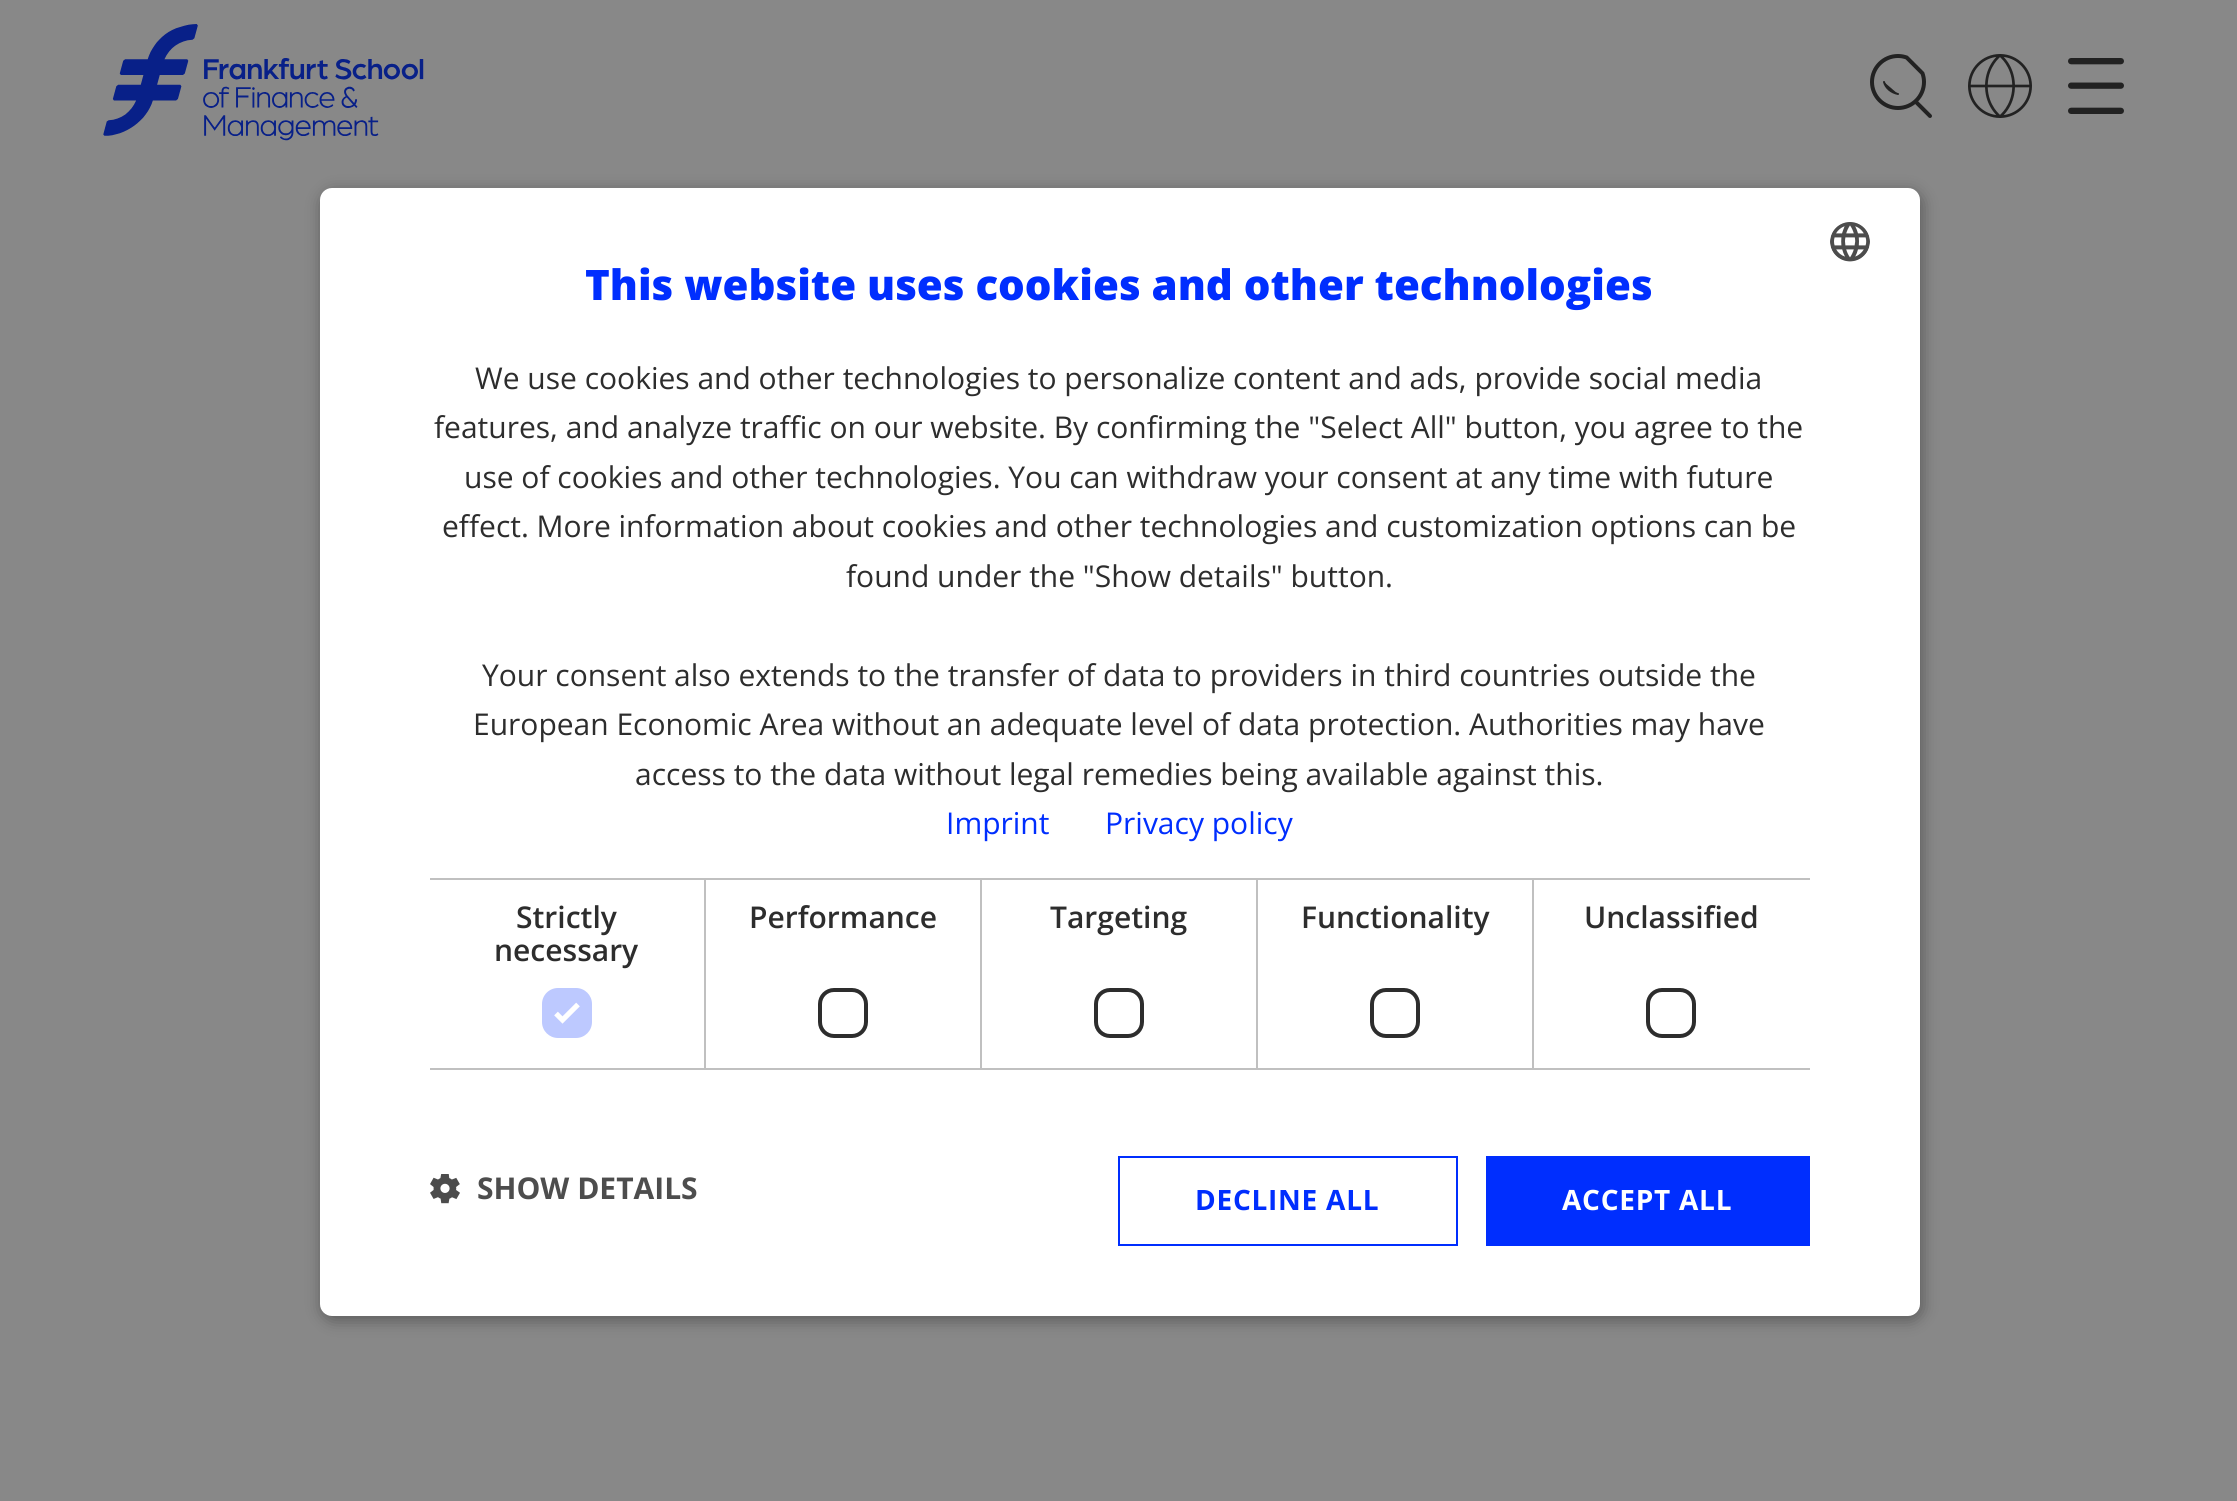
import math
import cairo

surface = cairo.ImageSurface(cairo.FORMAT_RGB24, 2237, 1501)
c = cairo.Context(surface)
options = cairo.FontOptions()
options.set_hint_metrics(cairo.HINT_METRICS_OFF)
options.set_hint_style(cairo.HINT_STYLE_NONE)
c.set_font_options(options)
c.set_miter_limit(4)
def C(code):
 c.set_source_rgb(*(v / 255 for v in bytes.fromhex(code[-6:])))
def F(family, size, italic, bold):
 c.select_font_face(family, cairo.FONT_SLANT_ITALIC if italic else cairo.FONT_SLANT_NORMAL, cairo.FONT_WEIGHT_BOLD if bold else cairo.FONT_WEIGHT_NORMAL)
 c.set_font_size(size)
def T(x, y, s):
 c.move_to(x, y)
 c.show_text(s)
def L(x, y, s, letter, word):
 c.move_to(x, y)
 for ch in s:
  c.show_text(ch)
  c.rel_move_to(letter + word * (ch == ' '), 0)
def R(x, y, w, h):
 c.rectangle(x, y, w, h)
 c.fill()
def Q(x, y, w, h, r):
 c.new_sub_path()
 for i, (u, v) in enumerate([(x + w - r, y + h - r), (x + r, y + h - r), (x + r, y + r), (x + w - r, y + r)]):
  c.arc(u, v, r, i * math.pi / 2, (i + 1) * math.pi / 2)
 c.close_path()
def S(x, y, w, h, r, blur, alpha):
 c.push_group_with_content(cairo.CONTENT_ALPHA)
 c.set_operator(cairo.OPERATOR_SOURCE)
 for i in range(15, -16, -2):
  e = blur * i / 6
  if min(w, h) + 2 * e > 0:
   c.set_source_rgba(0, 0, 0, alpha * math.erfc((i - 1) / 8.5) / 2)
   Q(x - e, y - e, w + 2 * e, h + 2 * e, max(0, min(r + e + blur * .6, min(w, h) / 2 + e)))
   c.fill()
 c.mask(c.pop_group())
def I(path, x, y, w, h):
 c.save()
 c.set_source_surface(cairo.ImageSurface.create_from_png(path), x, y)
 c.rectangle(x, y, w, h)
 c.fill()
 c.restore()
C('888888')
c.paint()
I('1.png',103,24,321,117)
I('2.png',1870,54,62,64)
I('3.png',1968,54,64,64)
I('4.png',2068,58,56,56)
C('000000')
S(322,192,1600,1128,12,8,.35)
C('ffffff')
Q(320,188,1600,1128,12)
c.fill()
I('5.png',1830,222,40,40)
F('Open Sans ExtraBold',42,0,0)
C('002efe')
T(585,300,'This website uses cookies and other technologies')
F('Open Sans',30,0,0)
C('2d2d2d')
T(475,389,'We use cookies and other technologies to personalize content and ads, provide social media')
T(434,438,'features, and analyze traffic on our website. By confirming the "Select All" button, you agree to the')
T(464,488,'use of cookies and other technologies. You can withdraw your consent at any time with future')
T(442,537,'effect. More information about cookies and other technologies and customization options can be')
T(846,587,'found under the "Show details" button.')
T(482,686,'Your consent also extends to the transfer of data to providers in third countries outside the')
T(473,735,'European Economic Area without an adequate level of data protection. Authorities may have')
T(635,785,'access to the data without legal remedies being available against this.')
C('002efe')
T(946,834,'Imprint')
T(1105,834,'Privacy policy')
C('c0c0c0')
R(430,878,1380,2)
R(704,878,2,192)
R(430,1068,276,2)
F('Open Sans SemiBold',30,0,0)
C('2d2d2d')
T(516,928,'Strictly')
T(494,961,'necessary')
C('bdc9ff')
Q(542,988,50,50,16)
c.fill()
c.new_path()
c.move_to(556,1013.5)
c.line_to(562.5,1020)
c.line_to(578,1004.5)
C('ffffff')
c.set_line_width(5.2)
c.stroke()
C('c0c0c0')
R(980,878,2,192)
R(706,1068,276,2)
C('2d2d2d')
T(749,928,'Performance')
Q(820,990,46,46,14)
c.set_line_width(4)
c.stroke()
C('c0c0c0')
R(1256,878,2,192)
R(982,1068,276,2)
C('2d2d2d')
T(1050,928,'Targeting')
Q(1096,990,46,46,14)
c.stroke()
C('c0c0c0')
R(1532,878,2,192)
R(1258,1068,552,2)
C('2d2d2d')
T(1301,928,'Functionality')
Q(1372,990,46,46,14)
c.stroke()
T(1584,928,'Unclassified')
Q(1648,990,46,46,14)
c.stroke()
I('6.png',430,1174,30,30)
F('Open Sans',30,0,1)
C('4d4d4d')
T(477,1199,'SHOW DETAILS')
c.rectangle(1119,1157,338,88)
C('002efe')
c.set_line_width(2)
c.stroke()
F('Open Sans',28,0,1)
L(1195,1210,'DECLINE ALL',.75,0)
R(1486,1156,324,90)
C('ffffff')
L(1562,1210,'ACCEPT ALL',.75,0)
surface.write_to_png('o.png')
